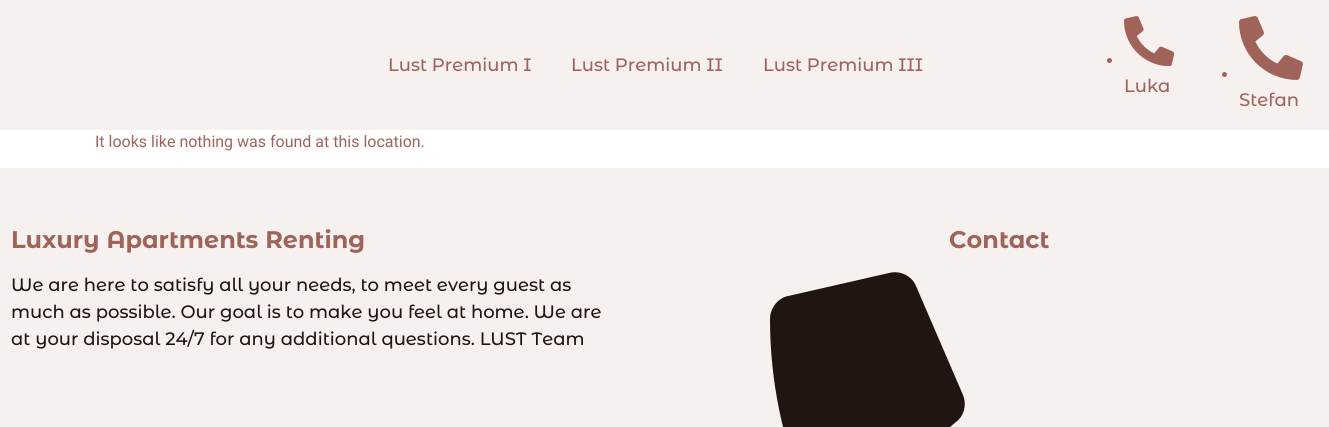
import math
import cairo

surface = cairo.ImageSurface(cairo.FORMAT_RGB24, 1329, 427)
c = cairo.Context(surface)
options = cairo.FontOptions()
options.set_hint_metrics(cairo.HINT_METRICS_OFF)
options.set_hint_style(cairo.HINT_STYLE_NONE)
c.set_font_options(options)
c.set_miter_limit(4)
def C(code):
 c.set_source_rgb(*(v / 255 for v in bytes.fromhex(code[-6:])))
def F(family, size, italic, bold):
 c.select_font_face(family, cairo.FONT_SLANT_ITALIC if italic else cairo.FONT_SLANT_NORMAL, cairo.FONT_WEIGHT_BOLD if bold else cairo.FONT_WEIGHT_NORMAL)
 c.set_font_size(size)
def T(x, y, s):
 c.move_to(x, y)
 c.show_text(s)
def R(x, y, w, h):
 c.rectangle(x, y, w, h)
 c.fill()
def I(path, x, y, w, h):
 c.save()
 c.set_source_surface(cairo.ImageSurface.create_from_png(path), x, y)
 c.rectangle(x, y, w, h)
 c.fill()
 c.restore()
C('ffffff')
c.paint()
C('f6f0ef')
R(0,0,1329,130)
F('Montserrat Alternates Medium',18,0,0)
C('9f6359')
T(388,71,'Lust Premium I')
T(571,71,'Lust Premium II')
T(763,71,'Lust Premium III')
c.new_path()
c.arc(1109.5,60.5,2.5,0,2 * math.pi)
c.fill()
I('1.png',1124,16,50,50)
T(1124,92,'Luka')
c.new_path()
c.arc(1224.5,74.5,2.5,0,2 * math.pi)
c.fill()
I('2.png',1239,16,64,64)
T(1239,106,'Stefan')
F('Roboto',16,0,0)
T(95,147,'It looks like nothing was found at this location.')
C('f6f0ef')
R(0,168,1329,259)
F('Montserrat Alternates',24,0,1)
C('9f6359')
T(11,248,'Luxury Apartments Renting')
F('Montserrat Alternates Medium',18,0,0)
C('211512')
T(11,291,'We are here to satisfy all your needs, to meet every guest as')
T(11,318,'much as possible. Our goal is to make you feel at home. We are')
T(11,345,'at your disposal 24/7 for any additional questions. LUST Team')
F('Montserrat Alternates',24,0,1)
C('9f6359')
T(949,248,'Contact')
C('211512')
c.new_path()
c.move_to(1254,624)
c.line_to(1145,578)
c.curve_to(1136,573,1125,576,1118,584)
c.line_to(1070,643)
c.curve_to(994,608,933,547,897,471)
c.line_to(956,422)
c.curve_to(964,416,967,405,963,395)
c.line_to(916,286)
c.curve_to(912,276,900,270,889,273)
c.line_to(788,296)
c.curve_to(778,298,770,308,770,319)
c.curve_to(770,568,972,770,1222,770)
c.curve_to(1233,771,1242,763,1245,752)
c.line_to(1268,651)
c.curve_to(1270,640,1265,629,1254,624)
c.close_path()
c.fill()
surface.write_to_png('o.png')
